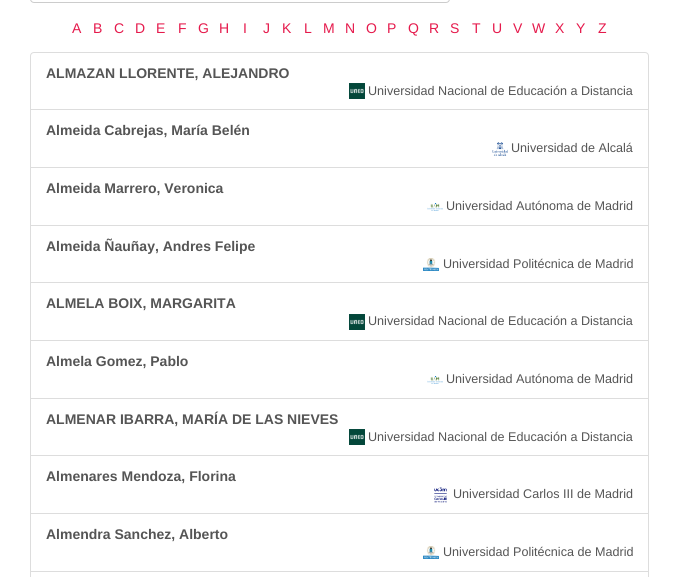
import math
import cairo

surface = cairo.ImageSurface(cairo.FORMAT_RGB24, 679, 577)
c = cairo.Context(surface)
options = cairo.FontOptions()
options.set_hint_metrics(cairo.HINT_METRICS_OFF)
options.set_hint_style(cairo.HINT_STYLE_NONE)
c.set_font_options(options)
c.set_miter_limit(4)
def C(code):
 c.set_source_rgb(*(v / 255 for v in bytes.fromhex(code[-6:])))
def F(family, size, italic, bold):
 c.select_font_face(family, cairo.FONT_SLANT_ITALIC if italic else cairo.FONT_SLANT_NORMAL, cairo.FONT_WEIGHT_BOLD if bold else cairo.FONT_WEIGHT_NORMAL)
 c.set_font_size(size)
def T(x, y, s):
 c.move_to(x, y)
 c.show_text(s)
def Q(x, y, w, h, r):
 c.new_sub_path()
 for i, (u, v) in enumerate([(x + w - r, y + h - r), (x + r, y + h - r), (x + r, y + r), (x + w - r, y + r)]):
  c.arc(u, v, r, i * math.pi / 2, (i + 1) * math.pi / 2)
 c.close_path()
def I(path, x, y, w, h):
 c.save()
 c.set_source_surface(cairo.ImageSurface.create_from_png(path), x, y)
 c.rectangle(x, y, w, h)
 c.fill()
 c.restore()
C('ffffff')
c.paint()
Q(30.5,-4.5,419,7,3.5)
C('cccccc')
c.set_line_width(1)
c.stroke()
F('Liberation Sans',14,0,0)
C('e51a4c')
T(72,33,'A')
T(93,33,'B')
T(114,33,'C')
T(135,33,'D')
T(156,33,'E')
T(178,33,'F')
T(198,33,'G')
T(219,33,'H')
T(243,33,'I')
T(263,33,'J')
T(282,33,'K')
T(304,33,'L')
T(323,33,'M')
T(345,33,'N')
T(366,33,'O')
T(387,33,'P')
T(408,33,'Q')
T(429,33,'R')
T(450,33,'S')
T(472,33,'T')
T(492,33,'U')
T(513,33,'V')
T(532,33,'W')
T(555,33,'X')
T(576,33,'Y')
T(598,33,'Z')
c.new_path()
c.move_to(34,52.5)
c.line_to(645,52.5)
c.curve_to(647,52.5,648.5,54,648.5,56)
c.line_to(648.5,109.5)
c.line_to(30.5,109.5)
c.line_to(30.5,56)
c.curve_to(30.5,54,32,52.5,34,52.5)
c.close_path()
C('dddddd')
c.stroke()
F('Liberation Sans',14,0,1)
C('555555')
T(46,78,'ALMAZAN LLORENTE, ALEJANDRO')
I('1.png',349,83,16,16)
F('Liberation Sans',12.6,0,0)
T(368,95,'Universidad Nacional de Educación a Distancia')
c.rectangle(30.5,109.5,618,58)
C('dddddd')
c.stroke()
F('Liberation Sans',14,0,1)
C('555555')
T(46,135,'Almeida Cabrejas, María Belén')
I('2.png',492,142,16,14)
F('Liberation Sans',12.6,0,0)
T(511,152,'Universidad de Alcalá')
c.rectangle(30.5,167.5,618,58)
C('dddddd')
c.stroke()
F('Liberation Sans',14,0,1)
C('555555')
T(46,193,'Almeida Marrero, Veronica')
I('3.png',427,203,16,8)
F('Liberation Sans',12.6,0,0)
T(446,210,'Universidad Autónoma de Madrid')
c.rectangle(30.5,225.5,618,57)
C('dddddd')
c.stroke()
F('Liberation Sans',14,0,1)
C('555555')
T(46,251,'Almeida Ñauñay, Andres Felipe')
I('4.png',423,258,16,13)
F('Liberation Sans',12.6,0,0)
T(443,268,'Universidad Politécnica de Madrid')
c.rectangle(30.5,282.5,618,58)
C('dddddd')
c.stroke()
F('Liberation Sans',14,0,1)
C('555555')
T(46,308,'ALMELA BOIX, MARGARITA')
I('1.png',349,314,16,16)
F('Liberation Sans',12.6,0,0)
T(368,325,'Universidad Nacional de Educación a Distancia')
c.rectangle(30.5,340.5,618,58)
C('dddddd')
c.stroke()
F('Liberation Sans',14,0,1)
C('555555')
T(46,366,'Almela Gomez, Pablo')
I('3.png',427,376,16,8)
F('Liberation Sans',12.6,0,0)
T(446,383,'Universidad Autónoma de Madrid')
c.rectangle(30.5,398.5,618,57)
C('dddddd')
c.stroke()
F('Liberation Sans',14,0,1)
C('555555')
T(46,424,'ALMENAR IBARRA, MARÍA DE LAS NIEVES')
I('1.png',349,429,16,16)
F('Liberation Sans',12.6,0,0)
T(368,441,'Universidad Nacional de Educación a Distancia')
c.rectangle(30.5,455.5,618,58)
C('dddddd')
c.stroke()
F('Liberation Sans',14,0,1)
C('555555')
T(46,481,'Almenares Mendoza, Florina')
I('5.png',434,487,13,16)
F('Liberation Sans',12.6,0,0)
T(453,498,'Universidad Carlos III de Madrid')
c.rectangle(30.5,513.5,618,58)
C('dddddd')
c.stroke()
F('Liberation Sans',14,0,1)
C('555555')
T(46,539,'Almendra Sanchez, Alberto')
I('4.png',423,546,16,13)
F('Liberation Sans',12.6,0,0)
T(443,556,'Universidad Politécnica de Madrid')
c.rectangle(30.5,571.5,618,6)
C('dddddd')
c.stroke()
surface.write_to_png('o.png')
